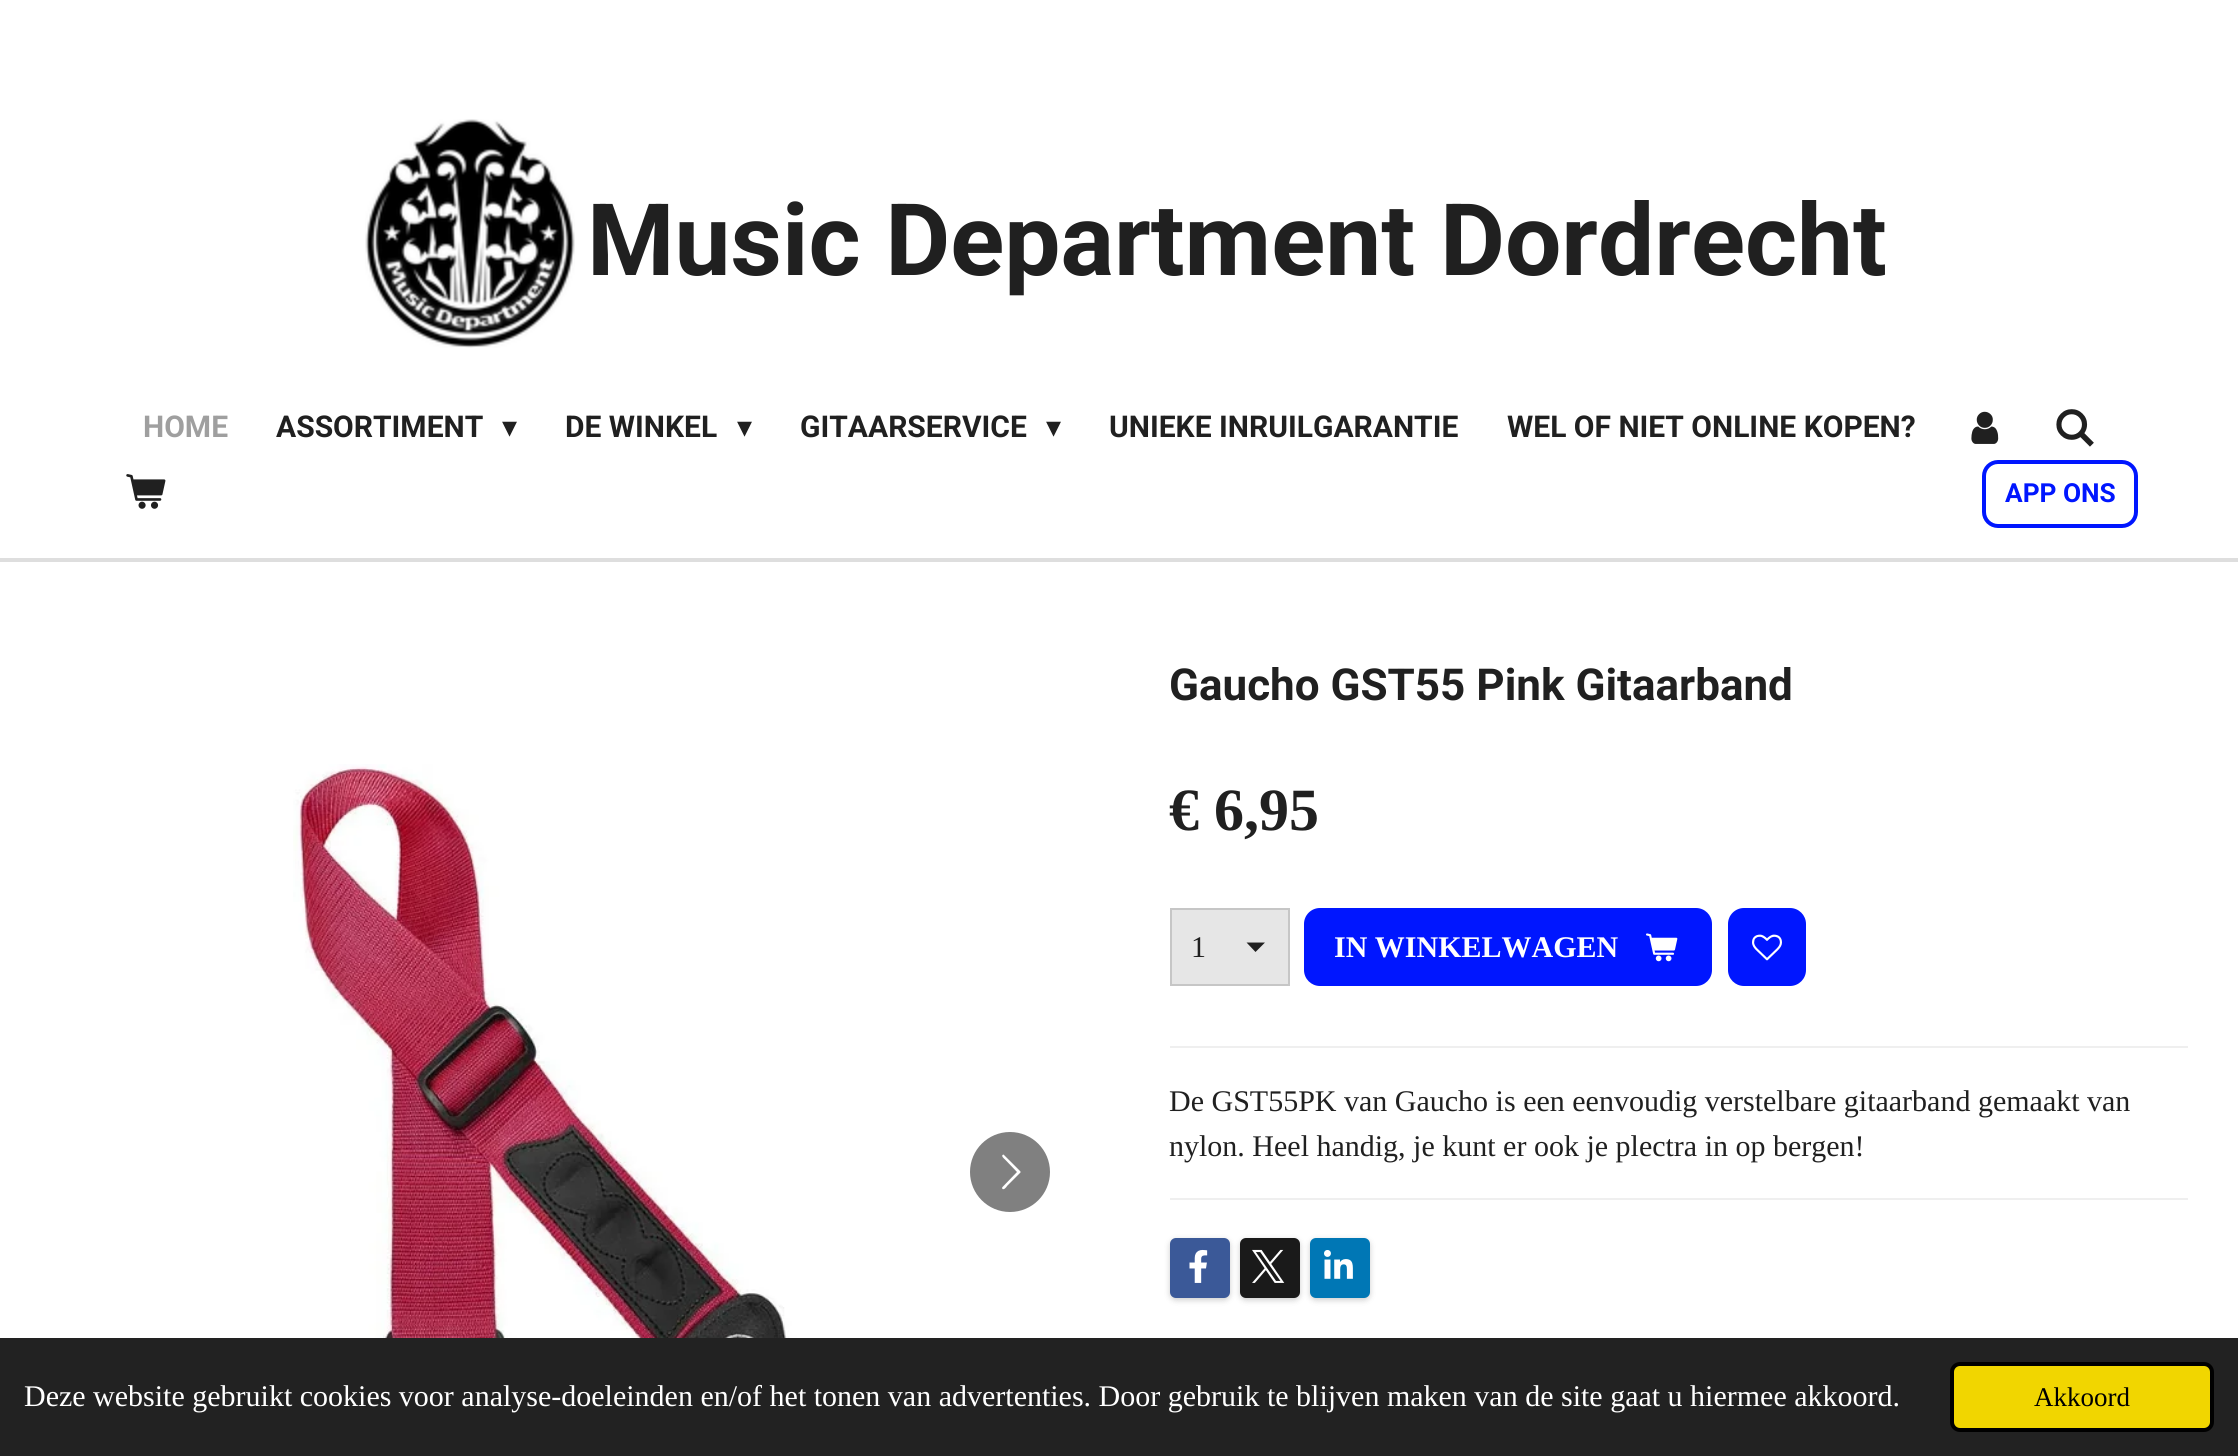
import math
import cairo

surface = cairo.ImageSurface(cairo.FORMAT_RGB24, 2238, 1456)
c = cairo.Context(surface)
options = cairo.FontOptions()
options.set_hint_metrics(cairo.HINT_METRICS_OFF)
options.set_hint_style(cairo.HINT_STYLE_NONE)
c.set_font_options(options)
c.set_miter_limit(4)
def C(code):
 c.set_source_rgb(*(v / 255 for v in bytes.fromhex(code[-6:])))
def F(family, size, italic, bold):
 c.select_font_face(family, cairo.FONT_SLANT_ITALIC if italic else cairo.FONT_SLANT_NORMAL, cairo.FONT_WEIGHT_BOLD if bold else cairo.FONT_WEIGHT_NORMAL)
 c.set_font_size(size)
def T(x, y, s):
 c.move_to(x, y)
 c.show_text(s)
def R(x, y, w, h):
 c.rectangle(x, y, w, h)
 c.fill()
def Q(x, y, w, h, r):
 c.new_sub_path()
 for i, (u, v) in enumerate([(x + w - r, y + h - r), (x + r, y + h - r), (x + r, y + r), (x + w - r, y + r)]):
  c.arc(u, v, r, i * math.pi / 2, (i + 1) * math.pi / 2)
 c.close_path()
def S(x, y, w, h, r, blur, alpha):
 c.push_group_with_content(cairo.CONTENT_ALPHA)
 c.set_operator(cairo.OPERATOR_SOURCE)
 for i in range(15, -16, -2):
  e = blur * i / 6
  if min(w, h) + 2 * e > 0:
   c.set_source_rgba(0, 0, 0, alpha * math.erfc((i - 1) / 8.5) / 2)
   Q(x - e, y - e, w + 2 * e, h + 2 * e, max(0, min(r + e + blur * .6, min(w, h) / 2 + e)))
   c.fill()
 c.mask(c.pop_group())
def I(path, x, y, w, h):
 c.save()
 c.set_source_surface(cairo.ImageSurface.create_from_png(path), x, y)
 c.rectangle(x, y, w, h)
 c.fill()
 c.restore()
C('ffffff')
c.paint()
I('1.png',365,119,210,229)
F('Roboto',100,0,1)
C('202020')
T(587,275,'Music Department Dordrecht')
F('Roboto',30,0,1)
C('9f9f9f')
T(143,437,'HOME')
C('202020')
T(276,437,'ASSORTIMENT')
F('DejaVu Sans',30,0,0)
T(502,437,'▾')
F('Roboto',30,0,1)
T(565,437,'DE WINKEL')
F('DejaVu Sans',30,0,0)
T(737,437,'▾')
F('Roboto',30,0,1)
T(800,437,'GITAARSERVICE')
F('DejaVu Sans',30,0,0)
T(1046,437,'▾')
F('Roboto',30,0,1)
T(1109,437,'UNIEKE INRUILGARANTIE')
T(1507,437,'WEL OF NIET ONLINE KOPEN?')
I('2.png',1971,411,28,33)
I('3.png',2056,409,38,38)
I('4.png',126,474,40,35)
Q(1984,462,152,64,14)
C('0016ff')
c.set_line_width(4)
c.stroke()
F('Roboto',26.25,0,1)
T(2005,502,'APP ONS')
C('dedede')
R(0,558,2238,4)
F('Roboto',44,0,1)
C('202020')
T(1169,700,'Gaucho GST55 Pink Gitaarband')
I('5.png',293,764,537,574)
C('808080')
c.arc(1010,1172,40,0,2 * math.pi)
c.fill()
C('ffffff')
c.new_path()
c.move_to(1002.5,1187)
c.line_to(1017,1172)
c.line_to(1005,1159.5)
c.curve_to(1004.5,1159,1000,1155.5,1003.5,1154.5)
c.line_to(1004,1155)
c.line_to(1020.5,1171.5)
c.line_to(1020.5,1172.5)
c.line_to(1007,1186)
c.curve_to(1007,1186.5,1003,1191.5,1002,1188)
c.close_path()
c.fill()
F('Liberation Serif',60,0,1)
C('202020')
T(1169,830,'€ 6,95')
C('e6e6e6')
R(1172,910,116,74)
C('202020')
c.new_path()
c.move_to(1255.5,952)
c.line_to(1246.5,942.5)
c.line_to(1265,942.5)
c.close_path()
c.fill()
c.rectangle(1171,909,118,76)
C('c6c6c6')
c.set_line_width(2)
c.stroke()
F('Liberation Serif',30,0,0)
C('202020')
T(1191,957,'1')
C('0016ff')
Q(1304,908,408,78,16)
c.fill()
F('Liberation Serif',30,0,1)
C('ffffff')
T(1334,957,'IN WINKELWAGEN')
I('6.png',1646,933,32,29)
C('0016ff')
Q(1728,908,78,78,16)
c.fill()
I('7.png',1752,934,30,27)
C('efefef')
R(1170,1046,1018,2)
F('Liberation Serif',30,0,0)
C('202020')
T(1169,1111,'De GST55PK van Gaucho is een eenvoudig verstelbare gitaarband gemaakt van')
T(1169,1156,'nylon. Heel handig, je kunt er ook je plectra in op bergen!')
C('efefef')
R(1170,1198,1018,2)
C('000000')
S(1170,1240,60,60,6,3,.2)
C('3b5998')
Q(1170,1238,60,60,6)
c.fill()
I('8.png',1189,1249,19,34)
C('000000')
S(1240,1240,60,60,6,3,.2)
C('1a1a1a')
Q(1240,1238,60,60,6)
c.fill()
I('9.png',1252,1249,33,34)
C('000000')
S(1310,1240,60,60,6,3,.2)
C('0077b5')
Q(1310,1238,60,60,6)
c.fill()
I('10.png',1324,1250,29,29)
C('222222')
R(0,1338,2238,118)
C('ffffff')
T(24,1406,'Deze website gebruikt cookies voor analyse-doeleinden en/of het tonen van advertenties. Door gebruik te blijven maken van de site gaat u hiermee akkoord.')
C('f1d600')
Q(1952,1364,260,66,8)
c.fill_preserve()
C('000000')
c.set_line_width(4)
c.stroke()
F('Liberation Serif',27,0,0)
T(2034,1406,'Akkoord')
surface.write_to_png('o.png')
